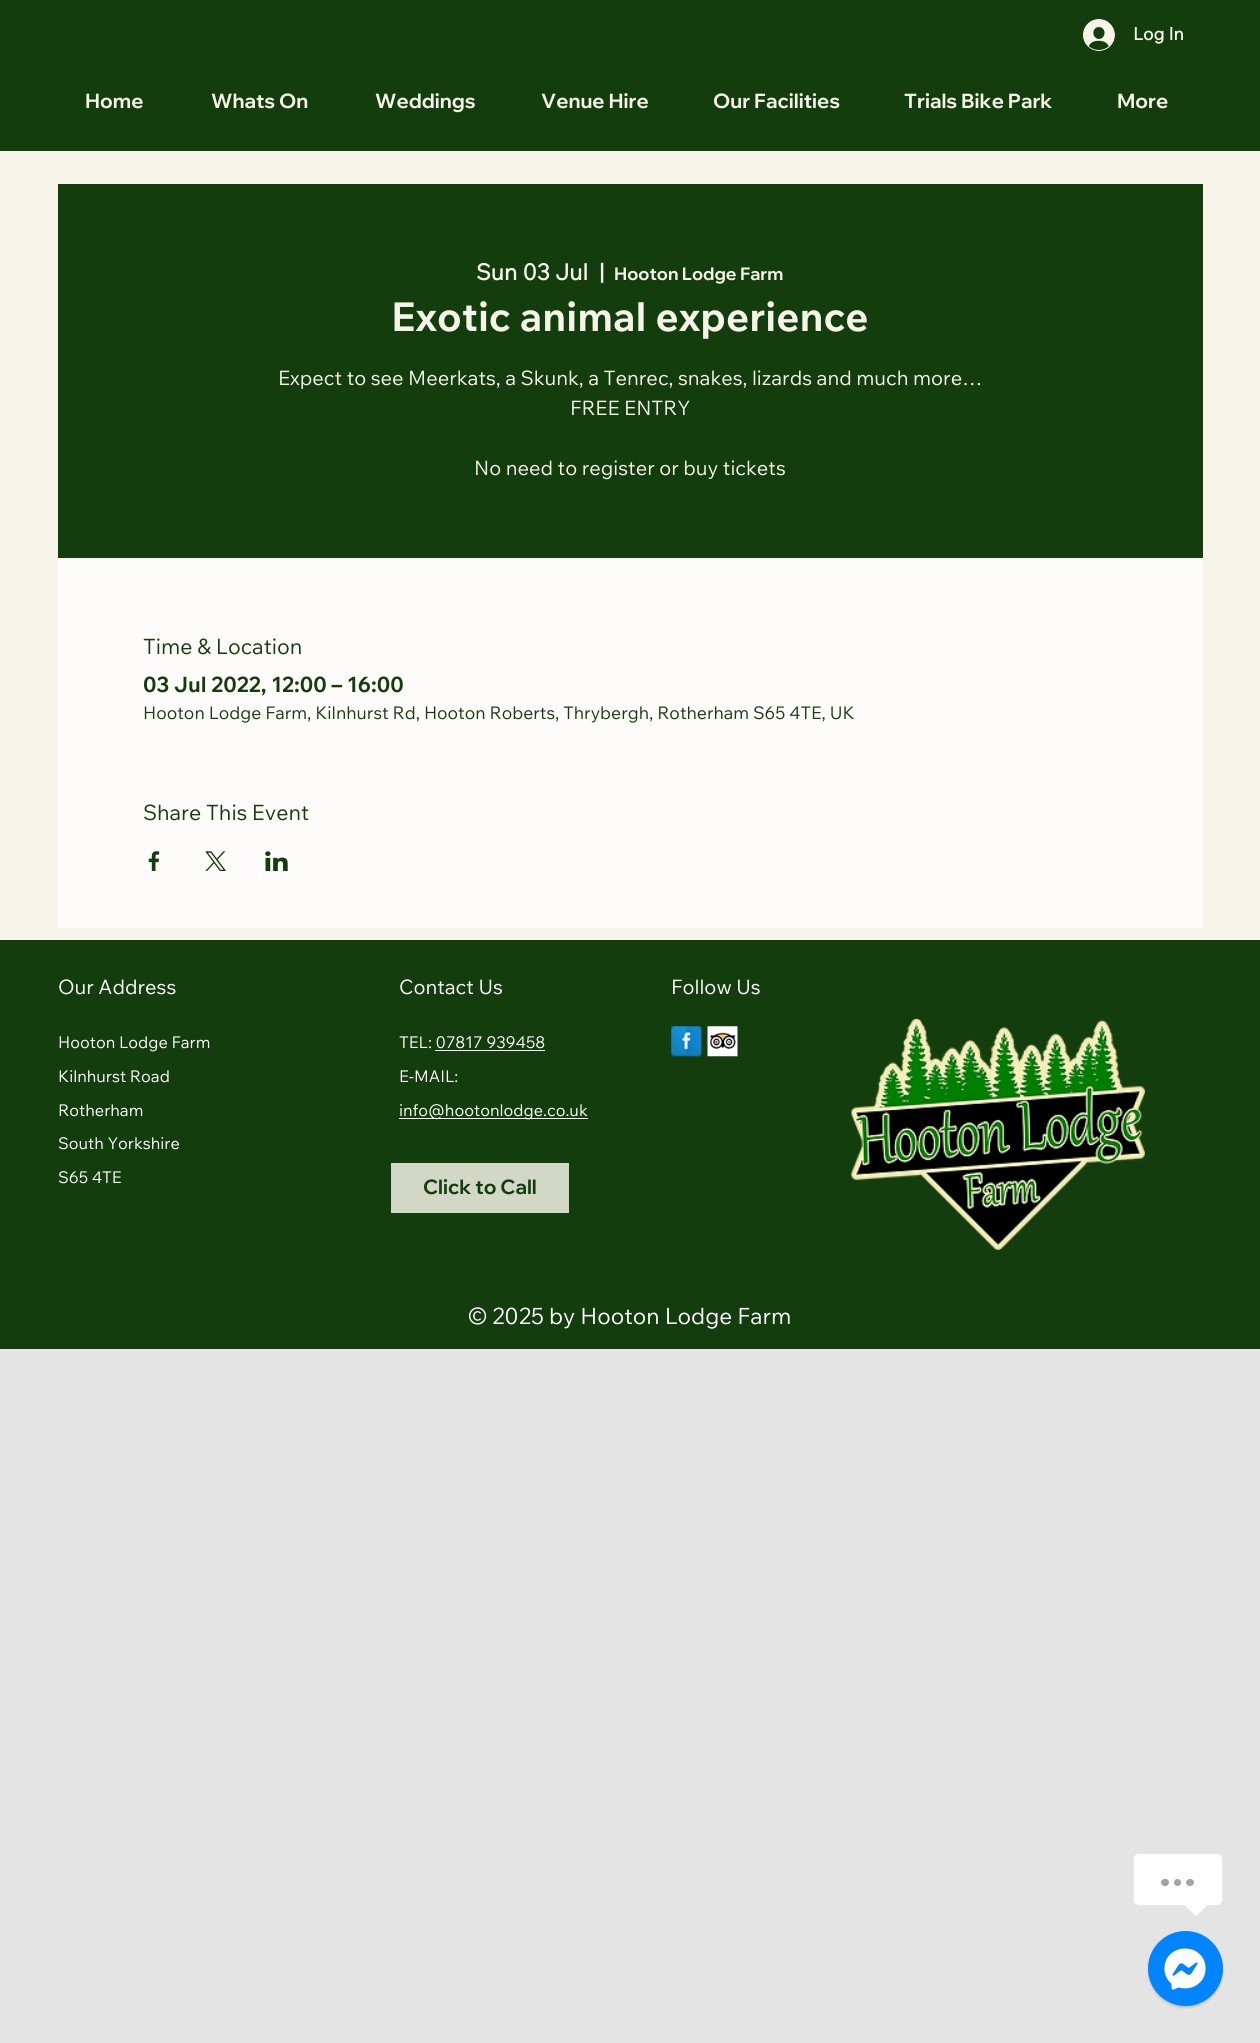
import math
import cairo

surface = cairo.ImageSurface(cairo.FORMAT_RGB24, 1260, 2043)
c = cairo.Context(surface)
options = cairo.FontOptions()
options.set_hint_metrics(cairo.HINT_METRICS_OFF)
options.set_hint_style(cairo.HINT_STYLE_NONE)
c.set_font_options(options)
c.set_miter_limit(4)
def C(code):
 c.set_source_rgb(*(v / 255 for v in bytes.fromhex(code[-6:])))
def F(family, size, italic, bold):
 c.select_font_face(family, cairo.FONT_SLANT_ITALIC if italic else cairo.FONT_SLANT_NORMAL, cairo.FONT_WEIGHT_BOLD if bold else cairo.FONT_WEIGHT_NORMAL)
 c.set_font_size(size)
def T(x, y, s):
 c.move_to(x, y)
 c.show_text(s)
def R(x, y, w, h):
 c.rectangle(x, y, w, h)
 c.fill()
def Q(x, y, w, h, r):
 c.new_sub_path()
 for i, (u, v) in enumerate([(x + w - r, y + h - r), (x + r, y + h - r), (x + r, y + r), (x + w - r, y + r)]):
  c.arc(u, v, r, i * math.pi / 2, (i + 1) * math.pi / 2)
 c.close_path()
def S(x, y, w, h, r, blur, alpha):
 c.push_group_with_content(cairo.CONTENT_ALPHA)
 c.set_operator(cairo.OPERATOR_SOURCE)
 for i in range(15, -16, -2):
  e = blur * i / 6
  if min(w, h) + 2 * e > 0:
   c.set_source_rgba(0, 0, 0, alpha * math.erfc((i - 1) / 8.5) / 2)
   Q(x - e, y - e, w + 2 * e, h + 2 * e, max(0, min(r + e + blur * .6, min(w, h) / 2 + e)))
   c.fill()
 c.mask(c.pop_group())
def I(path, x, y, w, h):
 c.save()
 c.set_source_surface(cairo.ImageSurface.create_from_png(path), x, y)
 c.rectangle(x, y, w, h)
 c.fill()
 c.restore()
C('e4e4e4')
c.paint()
C('143d0d')
R(0,0,1260,151)
I('1.png',1083,19,32,32)
F('Wix Madefor Text',17.5,0,1)
C('f6f4e9')
T(1133,40,'Log In')
F('Wix Madefor Display',20,0,1)
T(85,108,'Home')
T(211,108,'Whats On')
T(375,108,'Weddings')
T(541,108,'Venue Hire')
T(713,108,'Our Facilities')
T(904,108,'Trials Bike Park')
T(1117,108,'More')
R(0,151,1260,789)
C('143d0d')
R(58,184,1145,374)
F('Wix Madefor Text',22.5,0,1)
C('f6f4e9')
T(476,280,'Sun 03 Jul')
T(599,280,'|')
F('Wix Madefor Display',17.5,0,1)
T(614,280,'Hooton Lodge Farm')
F('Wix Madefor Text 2',40,0,1)
T(391,331,'Exotic animal experience')
F('Wix Madefor Text',20,0,0)
T(278,385,'Expect to see Meerkats, a Skunk, a Tenrec, snakes, lizards and much more…')
T(570,415,'FREE ENTRY')
T(474,475,'No need to register or buy tickets')
C('fdfcfa')
R(58,558,1145,370)
F('Wix Madefor Text',21.25,0,0)
C('143d0d')
T(143,654,'Time & Location')
F('Wix Madefor Text 2',21.25,0,1)
T(143,692,'03 Jul 2022, 12:00 – 16:00')
F('Wix Madefor Text',17.5,0,0)
T(143,719,'Hooton Lodge Farm, Kilnhurst Rd, Hooton Roberts, Thrybergh, Rotherham S65 4TE, UK')
F('Wix Madefor Text',21.25,0,0)
T(143,820,'Share This Event')
I('2.png',148,851,12,20)
I('3.png',205,851,21,20)
I('4.png',265,851,23,20)
R(0,940,1260,409)
F('Wix Madefor Text',20,0,0)
C('ffffff')
T(58,994,'Our Address')
T(399,994,'Contact Us')
T(671,994,'Follow Us')
F('Wix Madefor Text',16.25,0,0)
T(58,1048,'Hooton Lodge Farm')
T(58,1082,'Kilnhurst Road')
T(58,1116,'Rotherham')
T(58,1149,'South Yorkshire')
T(58,1183,'S65 4TE')
T(399,1048,'TEL: 07817 939458')
R(435,1050,110,1)
T(399,1082,'E-MAIL:')
R(399,1118,189,1)
T(399,1116,'info@hootonlodge.co.uk')
I('5.png',671,1026,31,31)
I('6.png',707,1026,31,31)
I('7.png',851,1018,294,232)
C('d2d7c6')
R(391,1163,178,50)
F('Wix Madefor Display',20,0,1)
C('143d0d')
T(423,1194,'Click to Call')
F('Wix Madefor Text',22.5,0,0)
C('ffffff')
T(468,1324,'© 2025 by Hooton Lodge Farm')
Q(1133.5,1853.5,89,52,5.5)
c.fill_preserve()
C('e9e9e9')
c.set_line_width(1)
c.stroke()
C('9fa4a8')
Q(1161,1879,8,7,3.5)
c.fill()
c.arc(1177.5,1882.5,3.5,0,2 * math.pi)
c.fill()
Q(1186,1879,8,7,3.5)
c.fill()
C('e9e9e9')
c.new_path()
c.move_to(1184,1905)
c.line_to(1209,1905)
c.line_to(1196,1917.5)
c.close_path()
c.fill()
C('ffffff')
c.new_path()
c.move_to(1185,1905)
c.line_to(1207.5,1905)
c.line_to(1196,1916)
c.close_path()
c.fill()
C('000000')
S(1148,1933,75,75,37.5,1,.15)
C('0084ff')
c.arc(1185.5,1968.5,37.5,0,2 * math.pi)
c.fill()
I('8.png',1164,1948,42,42)
surface.write_to_png('o.png')
